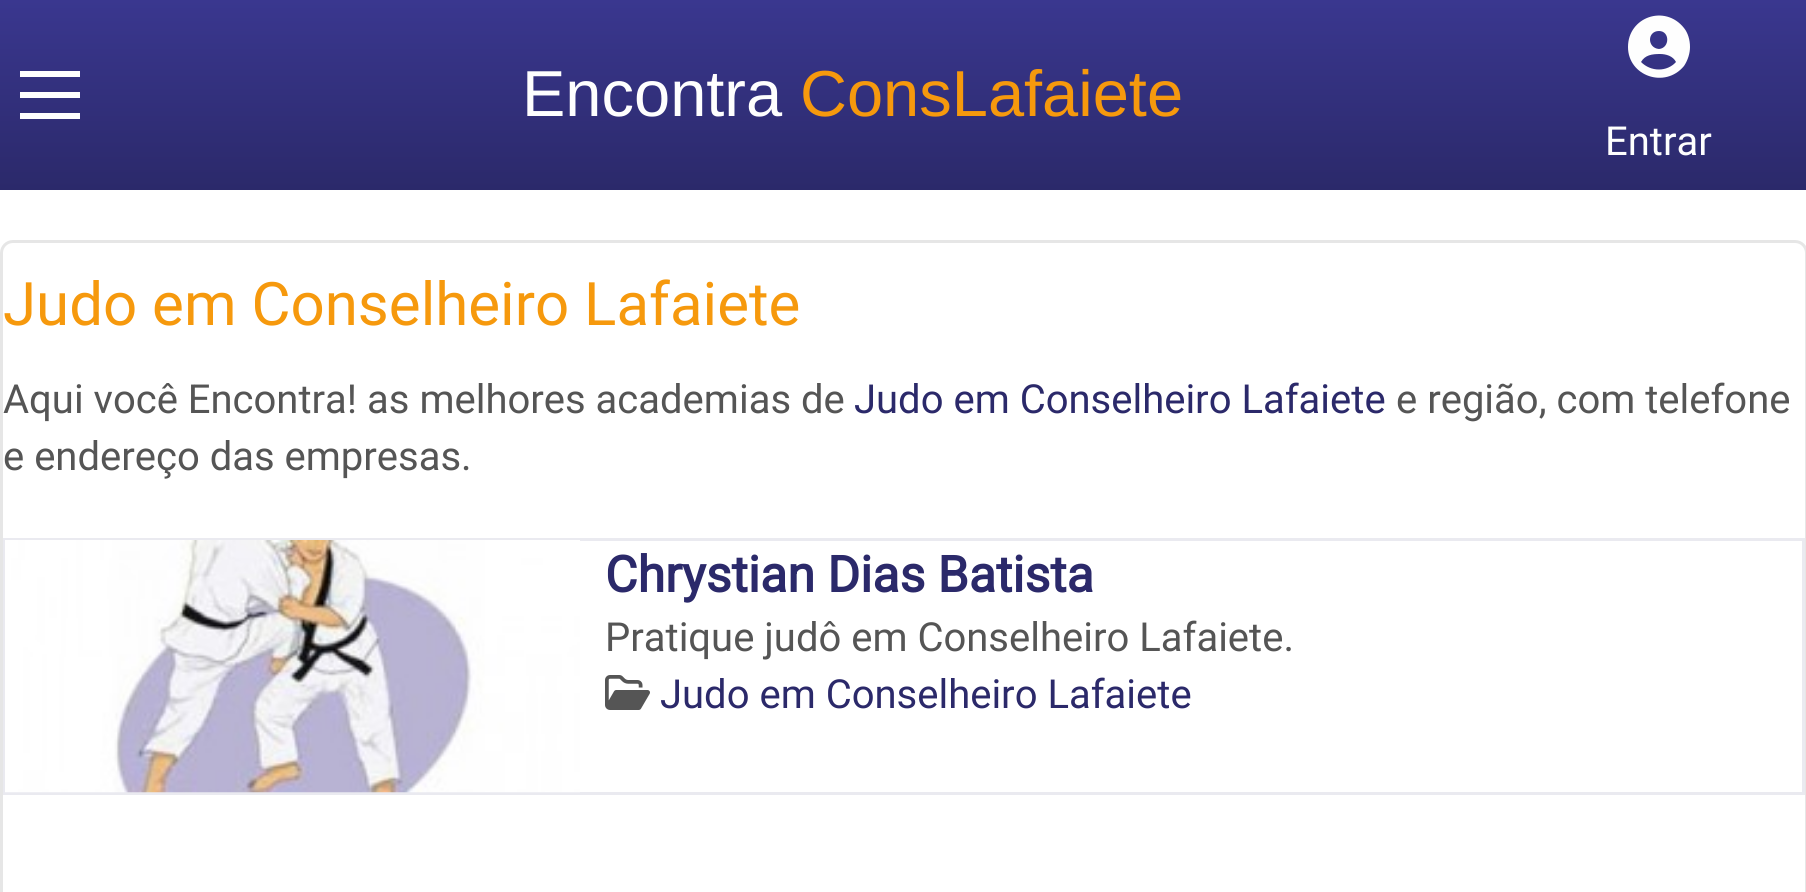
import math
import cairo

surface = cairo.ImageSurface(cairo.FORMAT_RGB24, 1806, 892)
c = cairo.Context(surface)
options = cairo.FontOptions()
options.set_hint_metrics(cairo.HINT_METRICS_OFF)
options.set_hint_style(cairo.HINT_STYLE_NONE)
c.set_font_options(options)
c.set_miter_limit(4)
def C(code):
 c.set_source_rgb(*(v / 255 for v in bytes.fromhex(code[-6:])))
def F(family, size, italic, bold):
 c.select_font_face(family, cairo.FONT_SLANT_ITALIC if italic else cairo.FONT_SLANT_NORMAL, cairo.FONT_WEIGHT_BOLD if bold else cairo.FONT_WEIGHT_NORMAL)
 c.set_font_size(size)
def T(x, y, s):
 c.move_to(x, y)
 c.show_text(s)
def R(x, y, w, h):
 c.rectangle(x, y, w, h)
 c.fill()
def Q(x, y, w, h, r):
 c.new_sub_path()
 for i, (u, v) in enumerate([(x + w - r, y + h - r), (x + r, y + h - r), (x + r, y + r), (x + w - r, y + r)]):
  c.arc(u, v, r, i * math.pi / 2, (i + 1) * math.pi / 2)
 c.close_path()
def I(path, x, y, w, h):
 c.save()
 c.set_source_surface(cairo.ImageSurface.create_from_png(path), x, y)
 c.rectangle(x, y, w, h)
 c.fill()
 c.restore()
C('ffffff')
c.paint()
gradient = cairo.LinearGradient(904,0,904,190)
gradient.add_color_stop_rgba(0,0.227,0.216,0.561,1)
gradient.add_color_stop_rgba(1,0.169,0.161,0.416,1)
c.set_source(gradient)
R(0,0,1806,190)
C('fefefe')
R(20,71,60,6)
R(20,92,60,6)
R(20,113,60,6)
F('Liberation Sans',65,0,0)
T(522,116,'Encontra')
C('f6990d')
T(800,116,'ConsLafaiete')
C('fefefe')
c.new_path()
c.move_to(1676,62)
c.curve_to(1673,56,1666,54,1660,54)
c.curve_to(1652,54,1645,55,1641,62)
c.curve_to(1651,72,1667,72,1676,62)
c.close_path()
c.move_to(1628,47)
c.curve_to(1628,17,1665,4,1684,28)
c.curve_to(1688,33,1690,40,1690,47)
c.curve_to(1690,53,1688,60,1684,66)
c.curve_to(1665,89,1628,76,1628,47)
c.close_path()
c.move_to(1659,49)
c.curve_to(1670,48,1670,31,1659,31)
c.curve_to(1647,31,1647,48,1659,49)
c.close_path()
c.fill()
F('Roboto',40,0,0)
T(1605,155,'Entrar')
Q(1.5,241.5,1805,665,11.5)
C('e6e6e6')
c.set_line_width(3)
c.stroke()
F('Roboto',60,0,0)
C('f6990d')
T(3,325,'Judo em Conselheiro Lafaiete')
F('Roboto',40,0,0)
C('555555')
T(3,413,'Aqui você Encontra! as melhores academias de')
C('2b296a')
T(854,413,'Judo em Conselheiro Lafaiete')
C('555555')
T(1396,413,'e região, com telefone')
T(3,470,'e endereço das empresas.')
c.rectangle(4.5,539.5,1799,254)
C('eaeaf0')
c.stroke()
I('1.png',5,540,575,253)
F('Roboto',50,0,1)
C('2b296a')
T(605,592,'Chrystian Dias Batista')
F('Roboto',40,0,0)
C('555555')
T(605,651,'Pratique judô em Conselheiro Lafaiete.')
I('2.png',605,675,45,35)
C('2b296a')
T(660,708,'Judo em Conselheiro Lafaiete')
surface.write_to_png('o.png')
